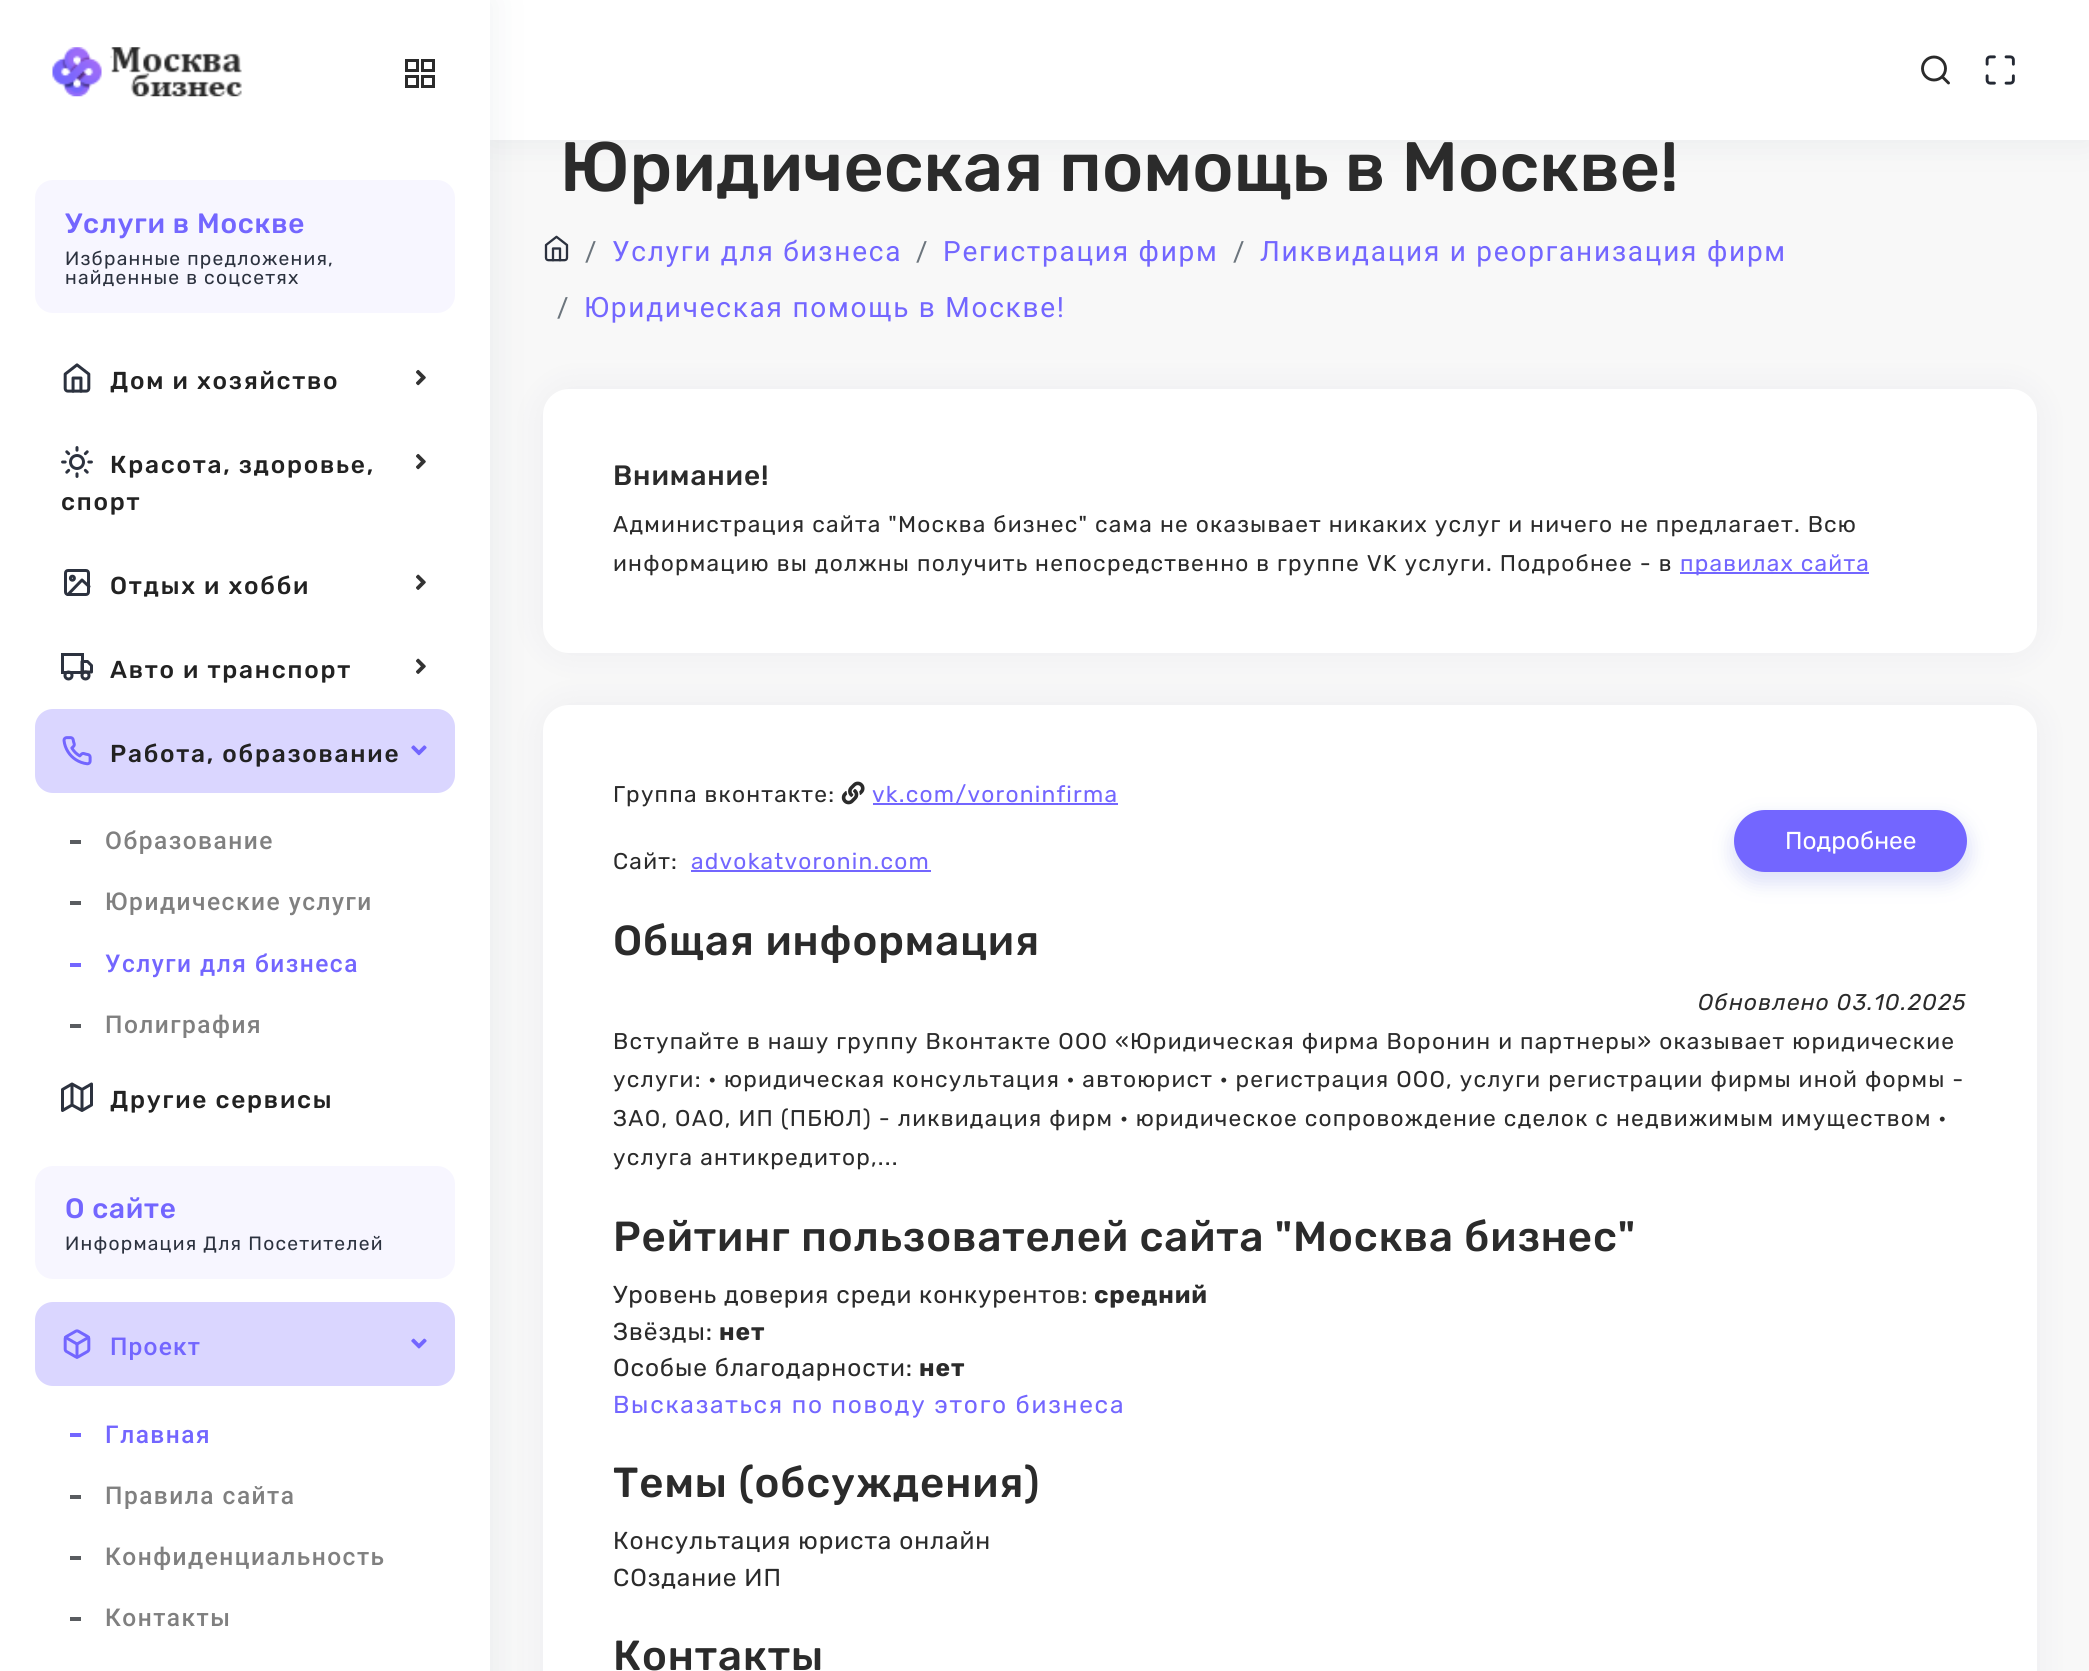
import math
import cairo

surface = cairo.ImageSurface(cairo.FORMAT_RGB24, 2089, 1671)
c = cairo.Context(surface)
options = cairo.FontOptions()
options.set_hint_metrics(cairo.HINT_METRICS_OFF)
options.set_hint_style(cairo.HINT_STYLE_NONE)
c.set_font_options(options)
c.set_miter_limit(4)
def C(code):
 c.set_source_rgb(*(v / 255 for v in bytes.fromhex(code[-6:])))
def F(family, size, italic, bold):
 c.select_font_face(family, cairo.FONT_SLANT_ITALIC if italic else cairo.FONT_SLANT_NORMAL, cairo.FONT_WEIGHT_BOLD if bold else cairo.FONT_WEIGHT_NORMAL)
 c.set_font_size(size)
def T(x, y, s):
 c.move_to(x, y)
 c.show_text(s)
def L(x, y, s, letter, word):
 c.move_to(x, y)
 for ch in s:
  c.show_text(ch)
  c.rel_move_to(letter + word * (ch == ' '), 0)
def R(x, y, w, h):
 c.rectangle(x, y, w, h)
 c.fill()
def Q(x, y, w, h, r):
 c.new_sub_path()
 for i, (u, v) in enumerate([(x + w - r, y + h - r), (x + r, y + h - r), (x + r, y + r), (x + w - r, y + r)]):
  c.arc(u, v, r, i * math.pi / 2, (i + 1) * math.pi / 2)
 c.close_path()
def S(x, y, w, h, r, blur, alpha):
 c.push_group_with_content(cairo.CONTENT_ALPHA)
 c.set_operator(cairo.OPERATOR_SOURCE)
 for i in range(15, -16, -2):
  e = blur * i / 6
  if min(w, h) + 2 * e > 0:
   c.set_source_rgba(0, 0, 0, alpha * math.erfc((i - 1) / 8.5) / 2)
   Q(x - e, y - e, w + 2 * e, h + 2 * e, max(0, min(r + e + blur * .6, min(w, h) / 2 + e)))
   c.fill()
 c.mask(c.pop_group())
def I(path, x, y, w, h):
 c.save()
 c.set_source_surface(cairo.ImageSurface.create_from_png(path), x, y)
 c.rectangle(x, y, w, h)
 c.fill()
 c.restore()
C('f8f8f8')
c.paint()
C('59667a')
S(490,0,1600,140,0,17.5,.1)
C('ffffff')
R(490,0,1599,140)
c.arc(1934,68.5,11.5,0,2 * math.pi)
C('2b2b2b')
c.set_line_width(2.9)
c.stroke()
c.new_path()
c.move_to(1948.5,83)
c.line_to(1942.5,77)
c.set_line_cap(cairo.LINE_CAP_ROUND)
c.set_line_join(cairo.LINE_JOIN_ROUND)
c.stroke()
I('1.png',1985,55,30,30)
I('11.png',544,235,25,27)
C('081542')
S(543,389,1494,264,26,17.5,.05)
C('ffffff')
Q(543,389,1494,264,26)
c.fill()
C('081542')
S(543,705,1494,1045,26,17.5,.05)
C('ffffff')
Q(543,705,1494,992,26)
c.fill()
C('59667a')
S(0,0,490,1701,0,18.5,.1)
C('ffffff')
R(0,0,490,1671)
I('2.png',52,47,190,50)
c.rectangle(406.5,60.5,11,10)
C('2b2b2b')
c.set_line_width(3)
c.set_line_cap(cairo.LINE_CAP_BUTT)
c.set_line_join(cairo.LINE_JOIN_MITER)
c.stroke()
c.rectangle(422.5,60.5,11,10)
c.stroke()
c.rectangle(406.5,76.5,11,10)
c.stroke()
c.rectangle(422.5,76.5,11,10)
c.stroke()
C('f7f6ff')
Q(35,180,420,133,18)
c.fill()
F('Rubik Medium',28,0,0)
C('7366ff')
L(65,233,'Услуги в Москве',.75,0)
F('Rubik',19.25,0,0)
C('2c323f')
L(65,265,'Избранные предложения,',1.22,0)
L(65,284,'найденные в соцсетях',1.22,0)
I('3.png',63,363,28,30)
F('Rubik Medium',24.5,0,0)
C('222222')
L(110,389,'Дом и хозяйство',1.75,0)
I('4.png',416,369,10,17)
I('5.png',61,446,32,32)
L(110,473,'Красота, здоровье,',1.75,0)
I('4.png',416,453,10,17)
L(61,510,'спорт',1.75,0)
Q(65.5,570.5,23,24,2.5)
C('2c323f')
c.stroke()
c.arc(72.4,578.2,2,0,2 * math.pi)
c.stroke()
C('222222')
L(110,594,'Отдых и хобби',1.75,0)
I('6.png',416,574,10,16)
c.new_path()
c.move_to(89,586.5)
c.line_to(82,580)
c.line_to(68,594.5)
C('2c323f')
c.set_line_cap(cairo.LINE_CAP_ROUND)
c.set_line_join(cairo.LINE_JOIN_ROUND)
c.stroke()
c.rectangle(62.5,654.5,20,18)
c.set_line_cap(cairo.LINE_CAP_BUTT)
c.set_line_join(cairo.LINE_JOIN_MITER)
c.stroke()
c.new_path()
c.move_to(82,661.5)
c.line_to(87.5,661.5)
c.line_to(91.5,665.5)
c.line_to(91.5,672)
c.line_to(82,672)
c.close_path()
c.set_line_cap(cairo.LINE_CAP_ROUND)
c.set_line_join(cairo.LINE_JOIN_ROUND)
c.stroke()
C('222222')
L(110,678,'Авто и транспорт',1.75,0)
I('6.png',416,658,10,16)
c.arc(68.5,675.5,3.5,0,2 * math.pi)
C('2c323f')
c.set_line_cap(cairo.LINE_CAP_BUTT)
c.set_line_join(cairo.LINE_JOIN_MITER)
c.stroke()
c.arc(85.5,675.5,3.5,0,2 * math.pi)
c.stroke()
C('dad6ff')
Q(35,709,420,84,18)
c.fill()
I('7.png',62,736,30,30)
C('222222')
L(110,762,'Работа, образование',1.75,0)
I('8.png',411,745,16,11)
C('595c60')
R(70,840,11,4)
F('Roboto Medium',24.5,0,0)
C('808080')
L(105,849,'Образование',1.5,0)
C('595c60')
R(70,901,11,4)
C('808080')
L(105,910,'Юридические услуги',1.5,0)
C('7366ff')
R(70,963,11,4)
L(105,972,'Услуги для бизнеса',1.5,0)
C('595c60')
R(70,1024,11,4)
C('808080')
L(105,1033,'Полиграфия',1.5,0)
c.new_path()
c.move_to(62.5,1089.5)
c.line_to(62.5,1110.5)
c.line_to(72,1105)
c.line_to(82,1110.5)
c.line_to(91.5,1105)
c.line_to(91.5,1084)
c.line_to(82,1089.5)
c.line_to(72,1084)
c.close_path()
c.move_to(72,1084)
c.line_to(72,1105)
c.move_to(82,1089.5)
c.line_to(82,1110.5)
C('2c323f')
c.set_line_cap(cairo.LINE_CAP_ROUND)
c.set_line_join(cairo.LINE_JOIN_ROUND)
c.stroke()
F('Rubik Medium',24.5,0,0)
C('222222')
L(110,1108,'Другие сервисы',1.75,0)
C('f7f6ff')
Q(35,1166,420,113,18)
c.fill()
F('Rubik Medium',28,0,0)
C('7366ff')
L(65,1218,'О сайте',.75,0)
F('Rubik',19.25,0,0)
C('2c323f')
L(65,1250,'Информация Для Посетителей',1.22,0)
C('dad6ff')
Q(35,1302,420,84,18)
c.fill()
I('9.png',63,1329,28,30)
F('Roboto Medium',24.5,0,0)
C('7366ff')
L(110,1355,'Проект',1.22,0)
I('10.png',411,1338,16,11)
R(70,1433,11,4)
L(105,1443,'Главная',1.5,0)
C('595c60')
R(70,1495,11,4)
C('808080')
L(105,1504,'Правила сайта',1.5,0)
C('595c60')
R(70,1556,11,4)
C('808080')
L(105,1565,'Конфиденциальность',1.5,0)
C('595c60')
R(70,1617,11,4)
C('808080')
L(105,1626,'Контакты',1.5,0)
F('Rubik Medium',69.8,0,0)
C('2b2b2b')
T(560,191,'Юридическая помощь в Москве!')
F('Roboto',28,0,0)
C('6c757d')
L(585,261,'/',1.75,0)
C('7366ff')
L(612,261,'Услуги для бизнеса',1.75,0)
C('6c757d')
L(916,261,'/',1.75,0)
C('7366ff')
L(943,261,'Регистрация фирм',1.75,0)
C('6c757d')
L(1233,261,'/',1.75,0)
C('7366ff')
L(1260,261,'Ликвидация и реорганизация фирм',1.75,0)
C('6c757d')
L(557,317,'/',1.75,0)
C('7366ff')
L(584,317,'Юридическая помощь в Москве!',1.75,0)
F('Rubik Medium',28,0,0)
C('2b2b2b')
L(613,485,'Внимание!',.9,0)
F('Rubik',22.75,0,0)
L(613,532,'Администрация сайта "Москва бизнес" сама не оказывает никаких услуг и ничего не предлагает. Всю',1.22,0)
L(613,571,'информацию вы должны получить непосредственно в группе VK услуги. Подробнее - в',1.22,0)
C('7366ff')
R(1680,572,189,2)
L(1680,571,'правилах сайта',1.22,0)
C('2b2b2b')
L(613,802,'Группа вконтакте:',1.22,0)
I('12.png',841,781,24,24)
C('7366ff')
R(873,803,245,2)
L(872,802,'vk.com/voroninfirma',1.22,0)
C('2b2b2b')
L(613,869,'Сайт:',1.22,0)
C('7366ff')
L(691,869,'advokatvoronin.com',1.22,0)
R(691,870,240,2)
C('5867dd')
S(1731,816,240,68,34,9,.19)
C('7366ff')
Q(1735,811,231,60,30)
c.fill_preserve()
c.set_line_width(2)
c.set_line_cap(cairo.LINE_CAP_BUTT)
c.set_line_join(cairo.LINE_JOIN_MITER)
c.stroke()
F('Rubik',24.5,0,0)
C('ffffff')
T(1785,849,'Подробнее')
F('Rubik Medium',42,0,0)
C('2b2b2b')
L(613,955,'Общая информация',.9,0)
F('Rubik',22.75,1,0)
L(1698,1010,'Обновлено 03.10.2025',1.22,0)
F('Rubik',22.75,0,0)
L(613,1049,'Вступайте в нашу группу Вконтакте ООО «Юридическая фирма Воронин и партнеры» оказывает юридические',1.22,0)
L(613,1087,'услуги: · юридическая консультация · автоюрист · регистрация ООО, услуги регистрации фирмы иной формы -',1.22,0)
L(613,1126,'ЗАО, ОАО, ИП (ПБЮЛ) - ликвидация фирм · юридическое сопровождение сделок с недвижимым имуществом ·',1.22,0)
L(613,1165,'услуга антикредитор,...',1.22,0)
F('Rubik Medium',42,0,0)
L(613,1251,'Рейтинг пользователей сайта "Москва бизнес"',.9,0)
F('Rubik',24.5,0,0)
L(613,1303,'Уровень доверия среди конкурентов:',.9,0)
F('Rubik',24.5,0,1)
L(1094,1303,'средний',.9,0)
F('Rubik',24.5,0,0)
L(613,1340,'Звёзды:',.9,0)
F('Rubik',24.5,0,1)
L(719,1340,'нет',.9,0)
F('Rubik',24.5,0,0)
L(613,1376,'Особые благодарности:',.9,0)
F('Rubik',24.5,0,1)
L(919,1376,'нет',.9,0)
F('Rubik',24.5,0,0)
C('7366ff')
L(613,1413,'Высказаться по поводу этого бизнеса',1.75,0)
F('Rubik Medium',42,0,0)
C('2b2b2b')
L(613,1497,'Темы (обсуждения)',.9,0)
F('Rubik',24.5,0,0)
L(613,1549,'Консультация юриста онлайн',.9,0)
L(613,1586,'СОздание ИП',.9,0)
F('Rubik Medium',42,0,0)
L(613,1670,'Контакты',.9,0)
surface.write_to_png('o.png')
